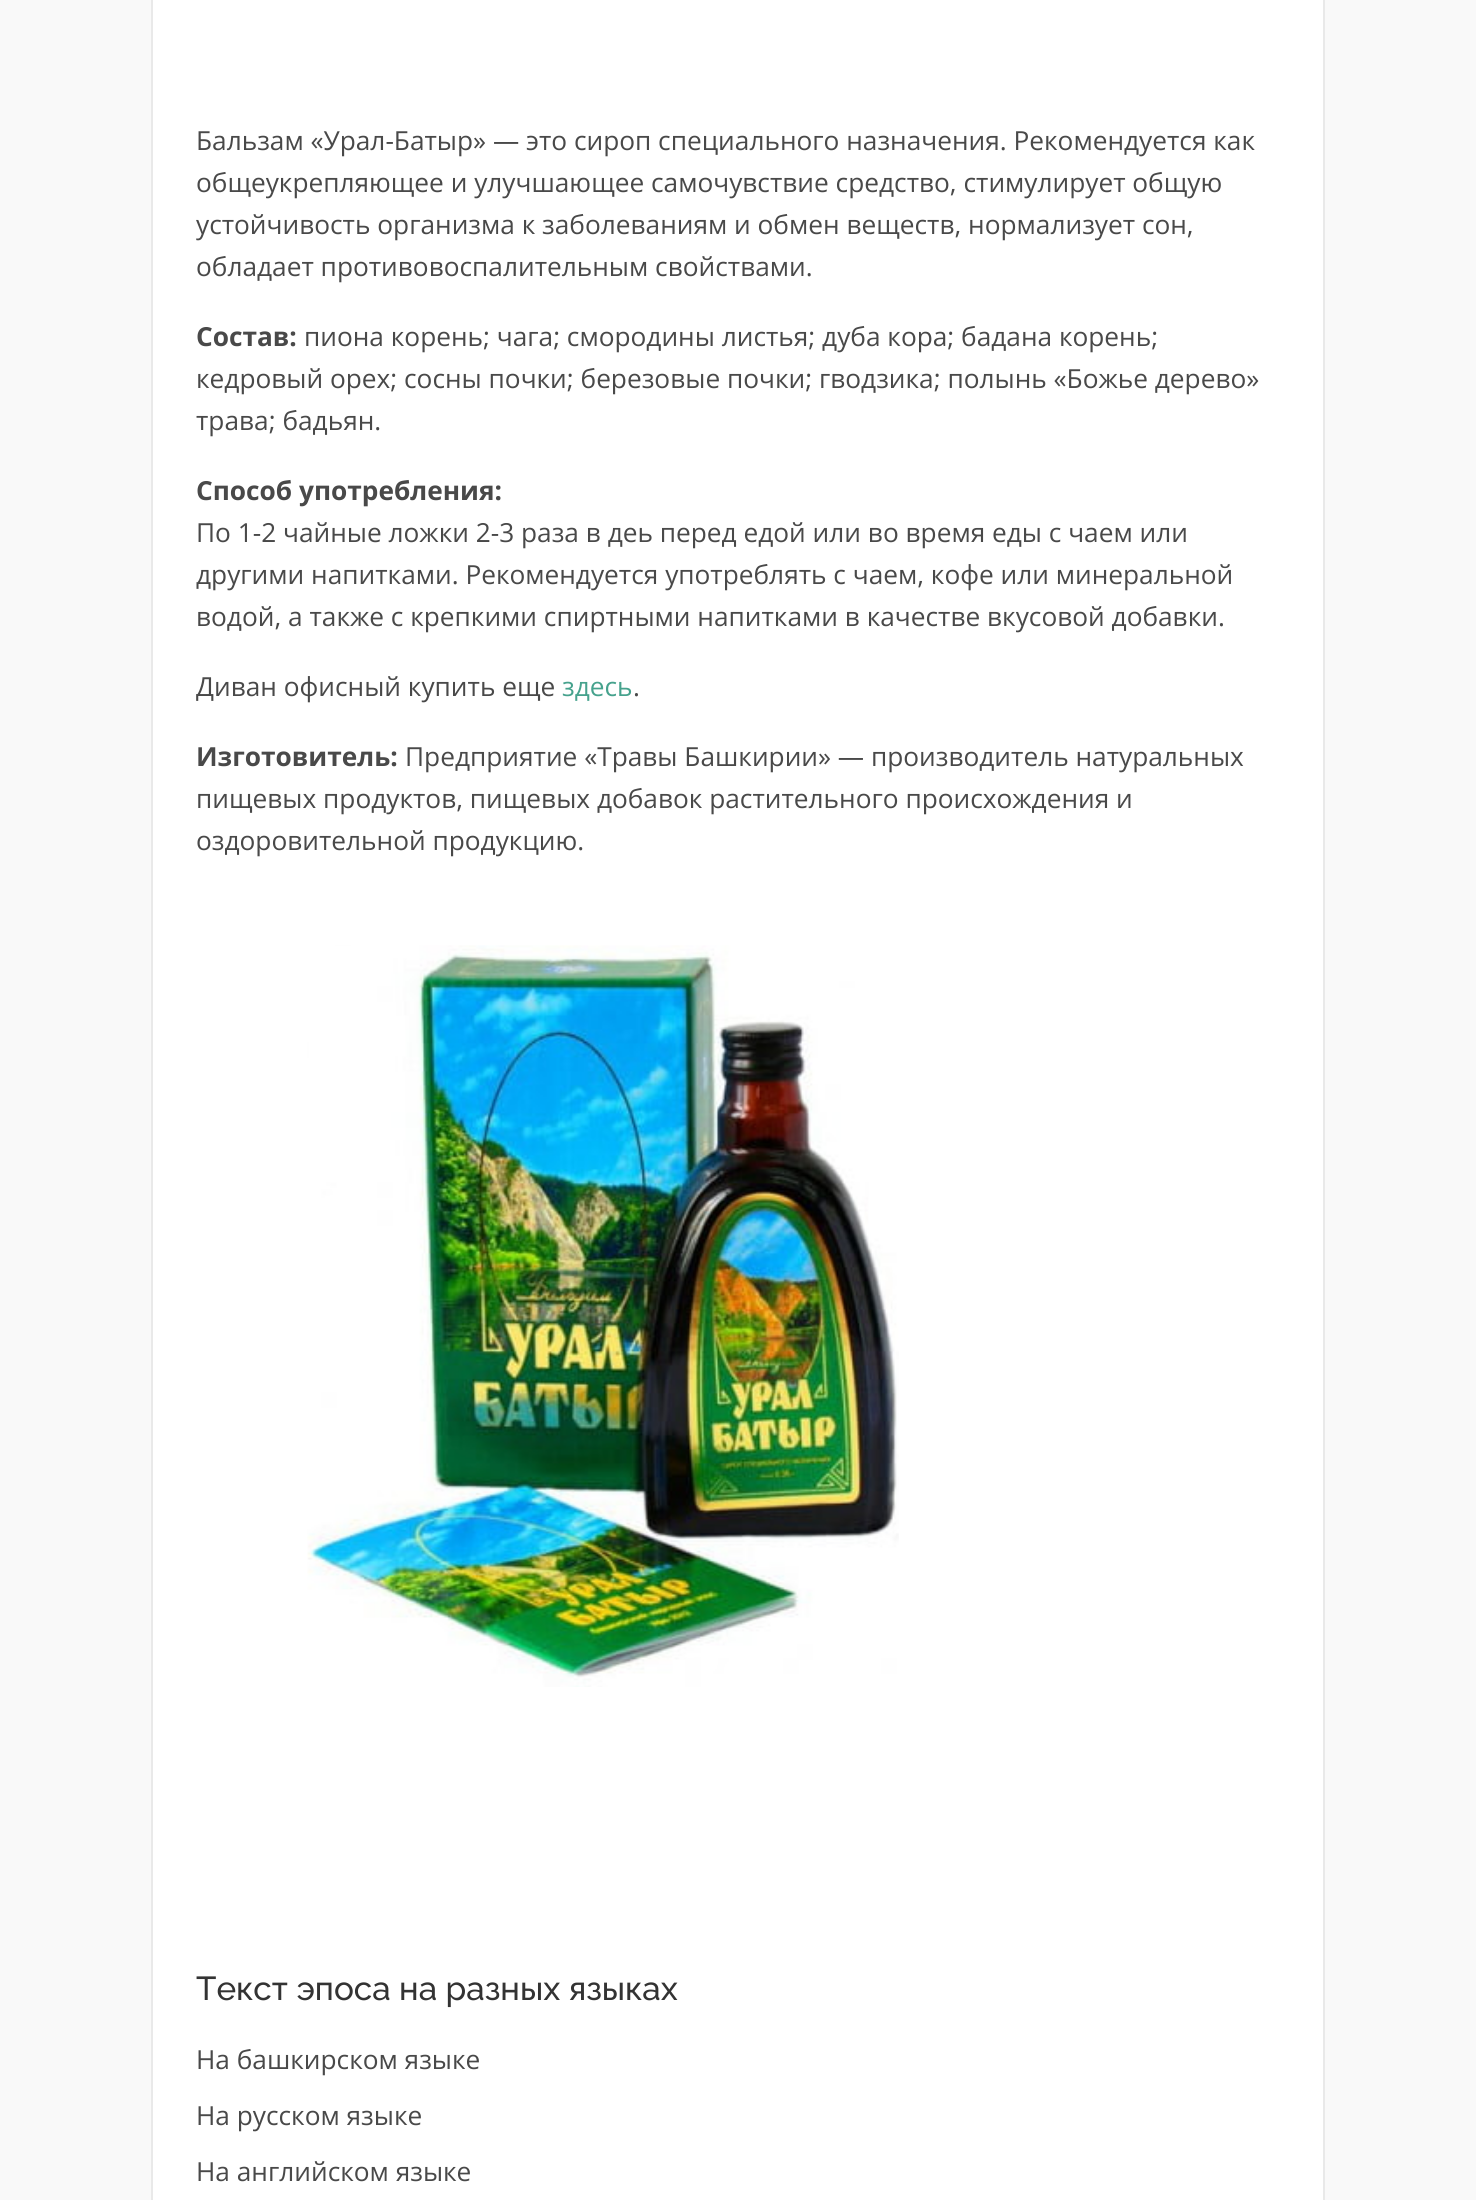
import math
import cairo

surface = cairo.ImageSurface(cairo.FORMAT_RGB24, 1476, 2200)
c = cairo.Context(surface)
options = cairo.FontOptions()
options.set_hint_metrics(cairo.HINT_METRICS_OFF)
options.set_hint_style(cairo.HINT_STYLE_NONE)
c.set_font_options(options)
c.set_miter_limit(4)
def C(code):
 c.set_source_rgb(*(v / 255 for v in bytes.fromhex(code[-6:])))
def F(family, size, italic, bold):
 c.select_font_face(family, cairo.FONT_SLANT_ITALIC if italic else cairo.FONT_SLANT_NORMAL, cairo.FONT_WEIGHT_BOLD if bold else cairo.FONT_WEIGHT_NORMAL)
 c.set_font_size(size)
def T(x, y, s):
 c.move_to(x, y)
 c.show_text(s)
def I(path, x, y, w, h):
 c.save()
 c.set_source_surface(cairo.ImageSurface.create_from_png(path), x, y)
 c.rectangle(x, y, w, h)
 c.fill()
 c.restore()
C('f9f9f9')
c.paint()
C('ffffff')
c.rectangle(152,-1,1172,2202)
c.fill_preserve()
C('e9e9e9')
c.stroke()
F('Open Sans',26.25,0,0)
C('494949')
T(196,150,'Бальзам «Урал-Батыр» — это сироп специального назначения. Рекомендуется как')
T(196,192,'общеукрепляющее и улучшающее самочувствие средство, стимулирует общую')
T(196,234,'устойчивость организма к заболеваниям и обмен веществ, нормализует сон,')
T(196,276,'обладает противовоспалительным свойствами.')
F('Open Sans',26.25,0,1)
T(196,346,'Состав:')
F('Open Sans',26.25,0,0)
T(304,346,'пиона корень; чага; смородины листья; дуба кора; бадана корень;')
T(196,388,'кедровый орех; сосны почки; березовые почки; гводзика; полынь «Божье дерево»')
T(196,430,'трава; бадьян.')
F('Open Sans',26.25,0,1)
T(196,500,'Способ употребления:')
F('Open Sans',26.25,0,0)
T(196,542,'По 1-2 чайные ложки 2-3 раза в деь перед едой или во время еды с чаем или')
T(196,584,'другими напитками. Рекомендуется употреблять с чаем, кофе или минеральной')
T(196,626,'водой, а также с крепкими спиртными напитками в качестве вкусовой добавки.')
T(196,696,'Диван офисный купить еще')
C('46a28d')
T(562,696,'здесь')
C('494949')
T(633,696,'.')
F('Open Sans',26.25,0,1)
T(196,766,'Изготовитель:')
F('Open Sans',26.25,0,0)
T(405,766,'Предприятие «Травы Башкирии» — производитель натуральных')
T(196,808,'пищевых продуктов, пищевых добавок растительного происхождения и')
T(196,850,'оздоровительной продукцию.')
I('1.png',307,945,592,742)
F('Raleway Medium',33.25,0,0)
C('333333')
T(196,2000,'Текст эпоса на разных языках')
F('Open Sans',26.25,0,0)
C('494949')
T(196,2069,'На башкирском языке')
T(196,2125,'На русском языке')
T(196,2181,'На английском языке')
surface.write_to_png('o.png')
